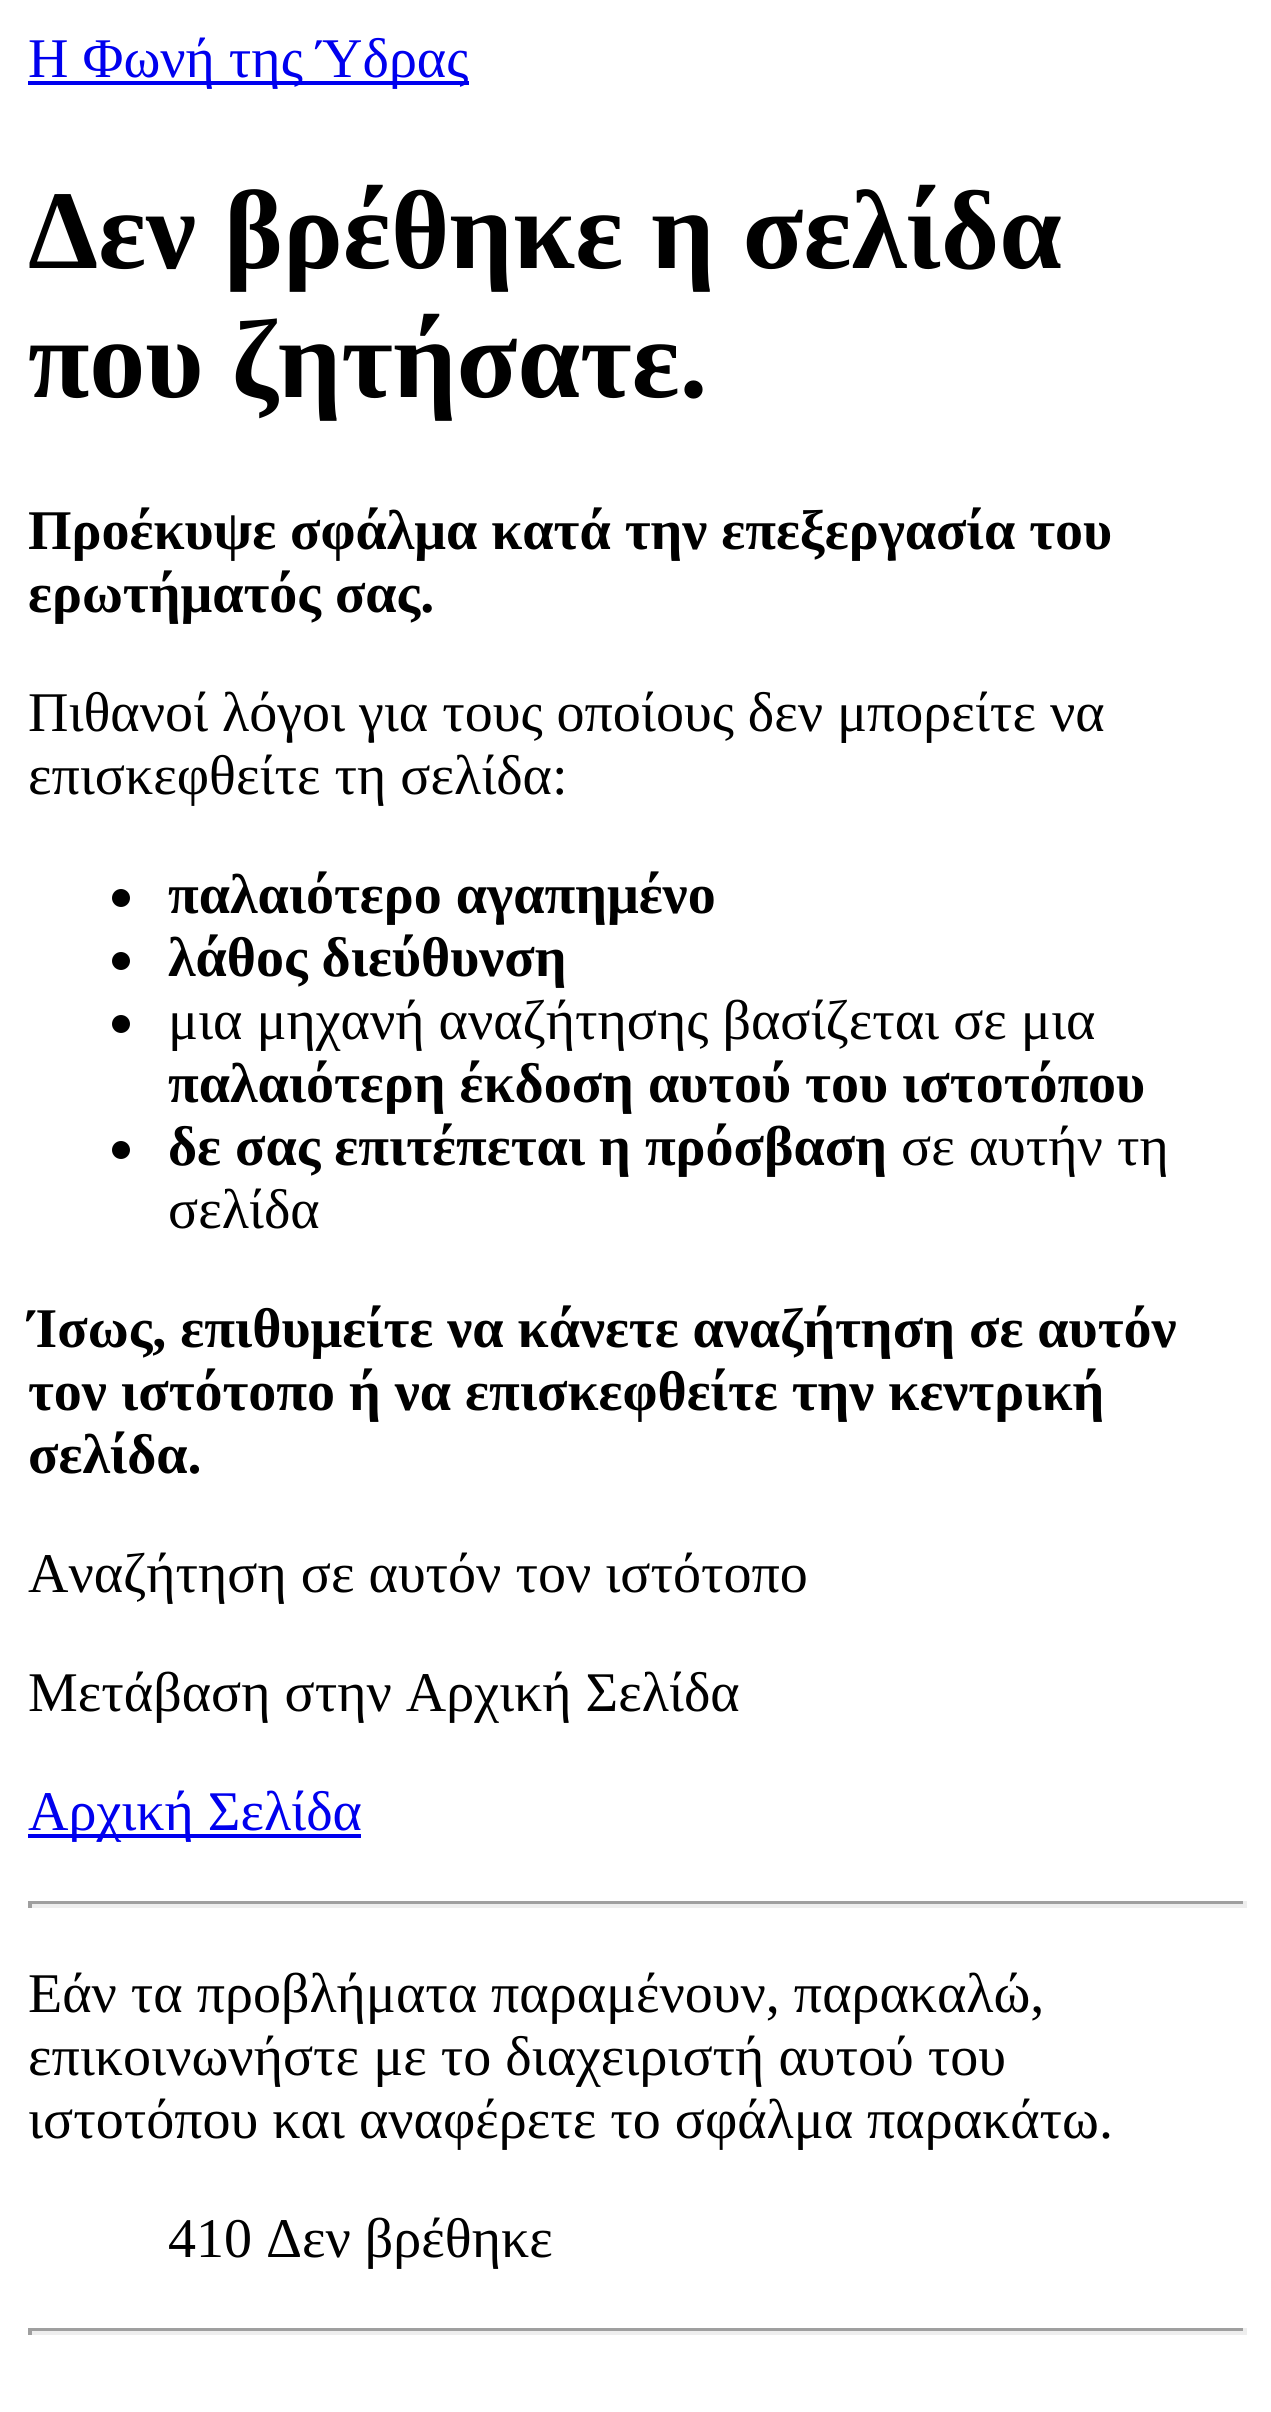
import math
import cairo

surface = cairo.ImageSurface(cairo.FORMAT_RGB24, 1271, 2412)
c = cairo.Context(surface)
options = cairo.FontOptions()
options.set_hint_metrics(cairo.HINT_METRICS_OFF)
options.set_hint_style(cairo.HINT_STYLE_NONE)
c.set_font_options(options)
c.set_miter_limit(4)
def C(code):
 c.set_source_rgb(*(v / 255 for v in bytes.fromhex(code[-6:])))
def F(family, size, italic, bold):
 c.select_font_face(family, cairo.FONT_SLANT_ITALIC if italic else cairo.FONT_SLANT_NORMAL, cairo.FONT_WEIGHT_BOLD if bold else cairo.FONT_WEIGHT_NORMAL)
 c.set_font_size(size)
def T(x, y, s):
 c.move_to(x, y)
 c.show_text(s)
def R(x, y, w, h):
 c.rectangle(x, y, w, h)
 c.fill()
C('ffffff')
c.paint()
C('0000ee')
R(28,81,441,4)
F('Liberation Serif',56,0,0)
T(28,77,'Η Φωνή της Ύδρας')
F('Liberation Serif',112,0,1)
C('000000')
T(28,268,'Δεν βρέθηκε η σελίδα')
T(28,397,'που ζητήσατε.')
F('Liberation Serif',56,0,1)
T(28,549,'Προέκυψε σφάλμα κατά την επεξεργασία του')
T(28,612,'ερωτήματός σας.')
F('Liberation Serif',56,0,0)
T(28,731,'Πιθανοί λόγοι για τους οποίους δεν μπορείτε να')
T(28,794,'επισκεφθείτε τη σελίδα:')
c.new_path()
c.arc(121,898,9,0,2 * math.pi)
c.fill()
F('Liberation Serif',56,0,1)
T(168,913,'παλαιότερο αγαπημένο')
c.new_path()
c.arc(121,961,9,0,2 * math.pi)
c.fill()
T(168,976,'λάθος διεύθυνση')
c.new_path()
c.arc(121,1024,9,0,2 * math.pi)
c.fill()
F('Liberation Serif',56,0,0)
T(168,1039,'μια μηχανή αναζήτησης βασίζεται σε μια')
F('Liberation Serif',56,0,1)
T(168,1102,'παλαιότερη έκδοση αυτού του ιστοτόπου')
c.new_path()
c.arc(121,1150,9,0,2 * math.pi)
c.fill()
T(168,1165,'δε σας επιτέπεται η πρόσβαση')
F('Liberation Serif',56,0,0)
T(901,1165,'σε αυτήν τη')
T(168,1228,'σελίδα')
F('Liberation Serif',56,0,1)
T(28,1347,'Ίσως, επιθυμείτε να κάνετε αναζήτηση σε αυτόν')
T(28,1410,'τον ιστότοπο ή να επισκεφθείτε την κεντρική')
T(28,1473,'σελίδα.')
F('Liberation Serif',56,0,0)
T(28,1592,'Αναζήτηση σε αυτόν τον ιστότοπο')
T(28,1711,'Μετάβαση στην Αρχική Σελίδα')
C('0000ee')
R(28,1834,333,4)
T(28,1830,'Αρχική Σελίδα')
C('9f9f9f')
R(28,1901,1218,3)
C('eeeeee')
R(1243,1901,4,7)
R(28,1904,1218,4)
C('9f9f9f')
R(28,1901,4,7)
C('000000')
T(28,2012,'Εάν τα προβλήματα παραμένουν, παρακαλώ,')
T(28,2075,'επικοινωνήστε με το διαχειριστή αυτού του')
T(28,2138,'ιστοτόπου και αναφέρετε το σφάλμα παρακάτω.')
T(168,2257,'410 Δεν βρέθηκε')
C('9f9f9f')
R(28,2328,1218,3)
C('eeeeee')
R(1243,2328,4,7)
R(28,2331,1218,4)
C('9f9f9f')
R(28,2328,4,7)
surface.write_to_png('o.png')
